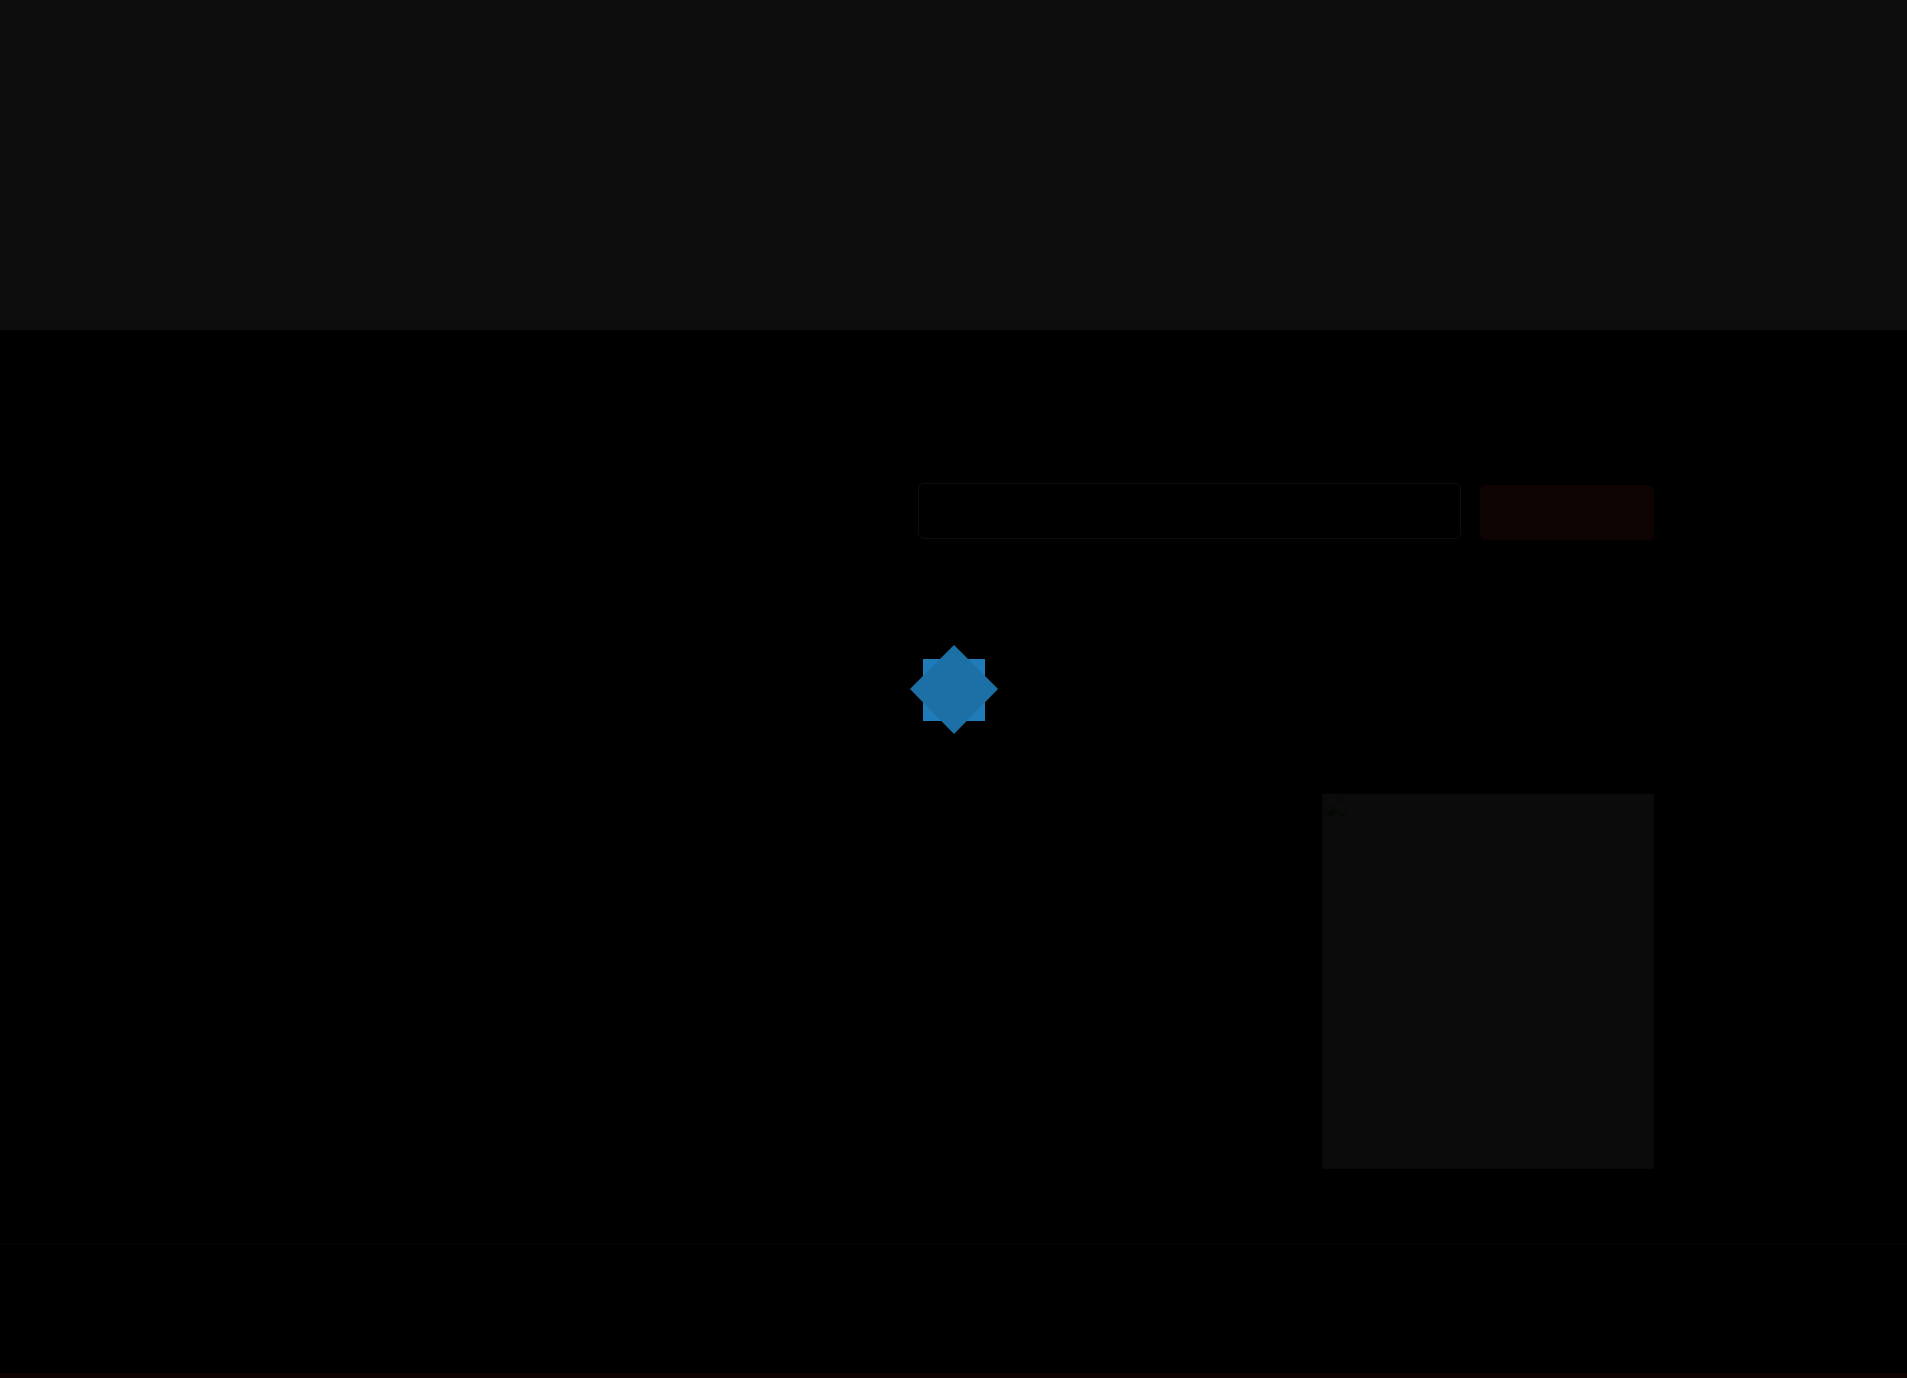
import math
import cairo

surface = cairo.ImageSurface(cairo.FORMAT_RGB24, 1907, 1378)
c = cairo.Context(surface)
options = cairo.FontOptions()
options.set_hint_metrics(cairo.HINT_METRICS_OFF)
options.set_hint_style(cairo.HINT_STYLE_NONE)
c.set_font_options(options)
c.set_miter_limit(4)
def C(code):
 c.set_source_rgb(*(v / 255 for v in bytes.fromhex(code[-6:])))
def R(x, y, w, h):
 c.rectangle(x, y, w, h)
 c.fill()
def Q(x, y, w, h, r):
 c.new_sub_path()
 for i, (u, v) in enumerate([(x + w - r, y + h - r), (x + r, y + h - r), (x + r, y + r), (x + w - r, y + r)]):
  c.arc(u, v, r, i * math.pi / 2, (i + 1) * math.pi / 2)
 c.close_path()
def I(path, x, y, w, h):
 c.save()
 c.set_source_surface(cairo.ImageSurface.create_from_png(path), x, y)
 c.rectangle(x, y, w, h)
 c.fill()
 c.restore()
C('0d0d0d')
c.paint()
C('000000')
R(0,330,1907,914)
Q(918.5,483.5,542,55,5.5)
C('0d0d0d')
c.set_line_width(1)
c.stroke()
C('0d0402')
Q(1481.5,486.5,171,52,4.5)
c.fill_preserve()
c.set_line_width(3)
c.stroke()
C('050505')
R(0,1244,1907,1)
I('1.png',1322,793,332,376)
C('000000')
R(0,1245,1907,128)
C('0d0402')
R(0,1373,1907,5)
C('207cb8')
R(923,659,62,62)
C('1d70a5')
c.new_path()
c.move_to(954,645)
c.line_to(998,689)
c.line_to(954,734)
c.line_to(910,689)
c.close_path()
c.fill()
surface.write_to_png('o.png')
